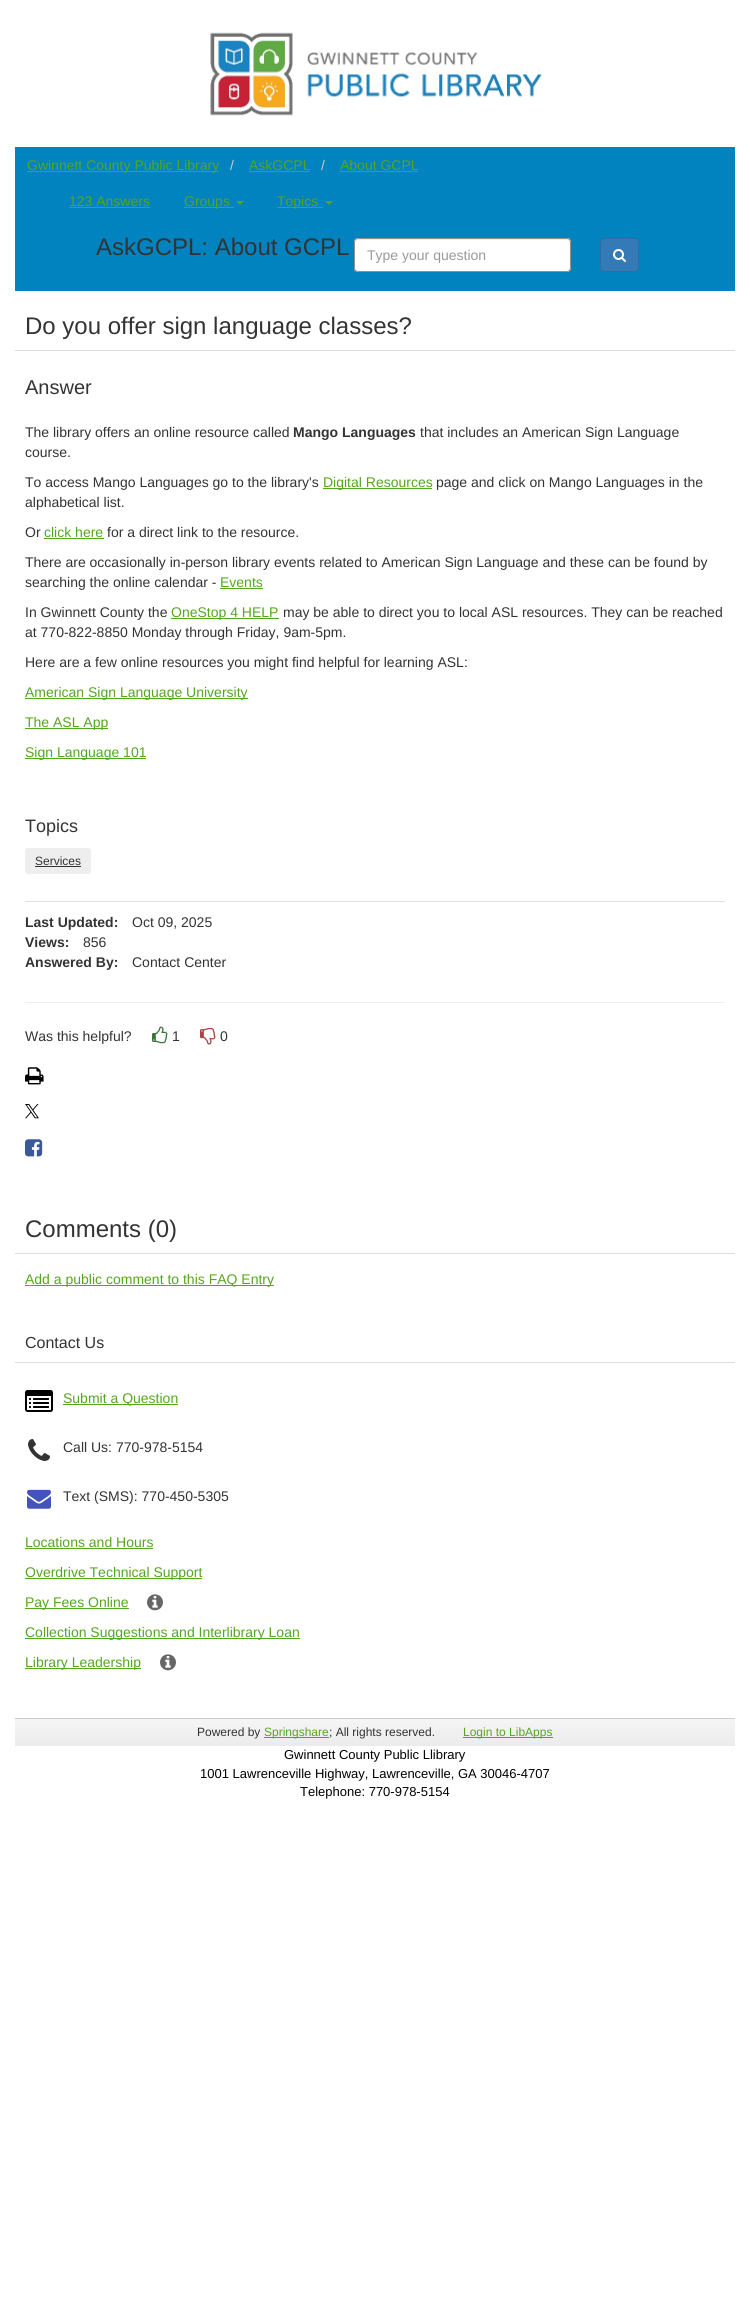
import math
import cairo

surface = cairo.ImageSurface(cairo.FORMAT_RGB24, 750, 2317)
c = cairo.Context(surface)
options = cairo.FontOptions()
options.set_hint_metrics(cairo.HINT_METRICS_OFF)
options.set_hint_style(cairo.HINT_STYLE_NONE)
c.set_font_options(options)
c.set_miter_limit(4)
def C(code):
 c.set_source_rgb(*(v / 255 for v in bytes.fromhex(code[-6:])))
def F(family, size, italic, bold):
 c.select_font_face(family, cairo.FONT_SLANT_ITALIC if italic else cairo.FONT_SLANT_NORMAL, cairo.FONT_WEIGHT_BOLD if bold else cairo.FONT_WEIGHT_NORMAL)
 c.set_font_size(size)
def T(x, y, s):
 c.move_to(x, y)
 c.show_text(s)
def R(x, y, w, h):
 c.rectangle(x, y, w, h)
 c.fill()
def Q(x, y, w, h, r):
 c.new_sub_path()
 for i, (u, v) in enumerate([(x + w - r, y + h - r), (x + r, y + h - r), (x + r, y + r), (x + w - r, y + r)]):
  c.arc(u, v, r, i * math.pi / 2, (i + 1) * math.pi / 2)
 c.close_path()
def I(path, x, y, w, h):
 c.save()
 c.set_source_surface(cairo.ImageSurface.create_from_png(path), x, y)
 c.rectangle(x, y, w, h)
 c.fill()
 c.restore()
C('ffffff')
c.paint()
I('1.png',210,32,332,84)
C('0083bf')
R(15,147,720,144)
C('55a61f')
R(27,171,192,1)
F('Liberation Sans',14,0,0)
T(27,170,'Gwinnett County Public Library')
C('cccccc')
T(230,170,'/')
C('55a61f')
T(249,170,'AskGCPL')
R(249,171,61,1)
C('cccccc')
T(321,170,'/')
C('55a61f')
T(340,170,'About GCPL')
R(340,171,78,1)
T(69,206,'123 Answers')
R(69,207,81,1)
R(184,207,50,1)
T(184,206,'Groups')
c.new_path()
c.move_to(236,201)
c.line_to(244,201)
c.line_to(240,205)
c.close_path()
c.fill()
R(277,207,46,1)
T(277,206,'Topics')
c.new_path()
c.move_to(325,201)
c.line_to(333,201)
c.line_to(329,205)
c.close_path()
c.fill()
F('Liberation Sans',24,0,0)
C('333333')
T(96,255,'AskGCPL: About GCPL')
C('ffffff')
Q(354,238,217,34,4)
c.fill()
C('ececec')
c.new_path()
c.move_to(358,240)
c.line_to(567,240)
c.curve_to(569,240,570,241,570,243)
c.line_to(570,242)
c.curve_to(570,240,569,239,567,239)
c.line_to(358,239)
c.curve_to(356,239,355,240,355,242)
c.line_to(355,243)
c.curve_to(355,241,356,240,358,240)
c.close_path()
c.fill()
Q(354.5,238.5,216,33,3.5)
C('919191')
c.set_line_width(1)
c.stroke()
F('Liberation Sans',14,0,0)
C('999999')
T(367,260,'Type your question')
C('337ab7')
Q(600.5,238.5,38,33,3.5)
c.fill_preserve()
C('2e6da4')
c.stroke()
I('2.png',613,249,13,13)
C('dddddd')
R(15,350,720,1)
F('Liberation Sans',24,0,0)
C('333333')
T(25,334,'Do you offer sign language classes?')
F('Liberation Sans',20,0,0)
T(25,394,'Answer')
F('Liberation Sans',14,0,0)
T(25,437,'The library offers an online resource called')
F('Liberation Sans',14,0,1)
T(293,437,'Mango Languages')
F('Liberation Sans',14,0,0)
T(420,437,'that includes an American Sign Language')
T(25,457,'course.')
T(25,487,'To access Mango Languages go to the library\'s')
C('55a61f')
R(323,488,109,1)
T(323,487,'Digital Resources')
C('333333')
T(436,487,'page and click on Mango Languages in the')
T(25,507,'alphabetical list.')
T(25,537,'Or')
C('55a61f')
T(44,537,'click here')
R(44,538,60,1)
C('333333')
T(107,537,'for a direct link to the resource.')
T(25,567,'There are occasionally in-person library events related to American Sign Language and these can be found by')
T(25,587,'searching the online calendar -')
C('55a61f')
T(220,587,'Events')
R(220,588,43,1)
C('333333')
T(25,617,'In Gwinnett County the')
C('55a61f')
R(171,618,108,1)
T(171,617,'OneStop 4 HELP')
C('333333')
T(283,617,'may be able to direct you to local ASL resources. They can be reached')
T(25,637,'at 770-822-8850 Monday through Friday, 9am-5pm.')
T(25,667,'Here are a few online resources you might find helpful for learning ASL:')
C('55a61f')
R(25,698,223,1)
T(25,697,'American Sign Language University')
R(25,728,83,1)
T(25,727,'The ASL App')
R(25,758,121,1)
T(25,757,'Sign Language 101')
F('Liberation Sans',18,0,0)
C('333333')
T(25,832,'Topics')
C('eeeeee')
Q(25,848,66,26,3)
c.fill()
F('Liberation Sans',12,0,0)
C('333333')
T(35,865,'Services')
R(35,866,46,1)
C('e1e1e5')
R(25,901,700,1)
F('Liberation Sans',14,0,1)
C('333333')
T(25,927,'Last Updated:')
F('Liberation Sans',14,0,0)
T(132,927,'Oct 09, 2025')
F('Liberation Sans',14,0,1)
T(25,947,'Views:')
F('Liberation Sans',14,0,0)
T(83,947,'856')
F('Liberation Sans',14,0,1)
T(25,967,'Answered By:')
F('Liberation Sans',14,0,0)
T(132,967,'Contact Center')
C('eeeeee')
R(25,1002,700,1)
C('333333')
T(25,1041,'Was this helpful?')
I('3.png',152,1026,16,18)
T(172,1041,'1')
I('4.png',200,1027,16,18)
T(220,1041,'0')
I('5.png',25,1067,19,18)
I('6.png',25,1104,14,15)
I('7.png',25,1139,18,18)
C('dddddd')
R(15,1253,720,1)
F('Liberation Sans',24,0,0)
C('333333')
T(25,1237,'Comments (0)')
C('55a61f')
R(25,1285,249,1)
F('Liberation Sans',14,0,0)
T(25,1284,'Add a public comment to this FAQ Entry')
C('dddddd')
R(15,1362,720,1)
F('Liberation Sans',16,0,0)
C('333333')
T(25,1348,'Contact Us')
I('8.png',25,1390,28,22)
C('55a61f')
R(63,1404,115,1)
F('Liberation Sans',14,0,0)
T(63,1403,'Submit a Question')
I('9.png',28,1439,22,22)
C('333333')
T(63,1452,'Call Us: 770-978-5154')
I('10.png',27,1489,24,20)
T(63,1501,'Text (SMS): 770-450-5305')
C('55a61f')
T(25,1547,'Locations and Hours')
R(25,1548,128,1)
R(25,1578,177,1)
T(25,1577,'Overdrive Technical Support')
R(25,1608,104,1)
T(25,1607,'Pay Fees Online')
I('11.png',147,1594,16,17)
R(25,1638,275,1)
T(25,1637,'Collection Suggestions and Interlibrary Loan')
R(25,1668,116,1)
T(25,1667,'Library Leadership')
I('11.png',160,1654,16,17)
gradient = cairo.LinearGradient(375,1719,375,1746)
gradient.add_color_stop_rgba(0,0.961,0.961,0.961,1)
gradient.add_color_stop_rgba(1,0.922,0.922,0.922,1)
c.set_source(gradient)
R(15,1719,720,27)
C('cccccc')
R(15,1718,720,1)
F('Liberation Sans',12,0,0)
C('333333')
T(197,1736,'Powered by')
C('55a61f')
R(264,1737,65,1)
T(264,1736,'Springshare')
C('333333')
T(329,1736,'; All rights reserved.')
C('55a61f')
R(463,1737,90,1)
T(463,1736,'Login to LibApps')
F('Liberation Sans',13,0,0)
C('000000')
T(284,1759,'Gwinnett County Public Llibrary')
T(200,1778,'1001 Lawrenceville Highway, Lawrenceville, GA 30046-4707')
T(300,1796,'Telephone: 770-978-5154')
surface.write_to_png('o.png')
